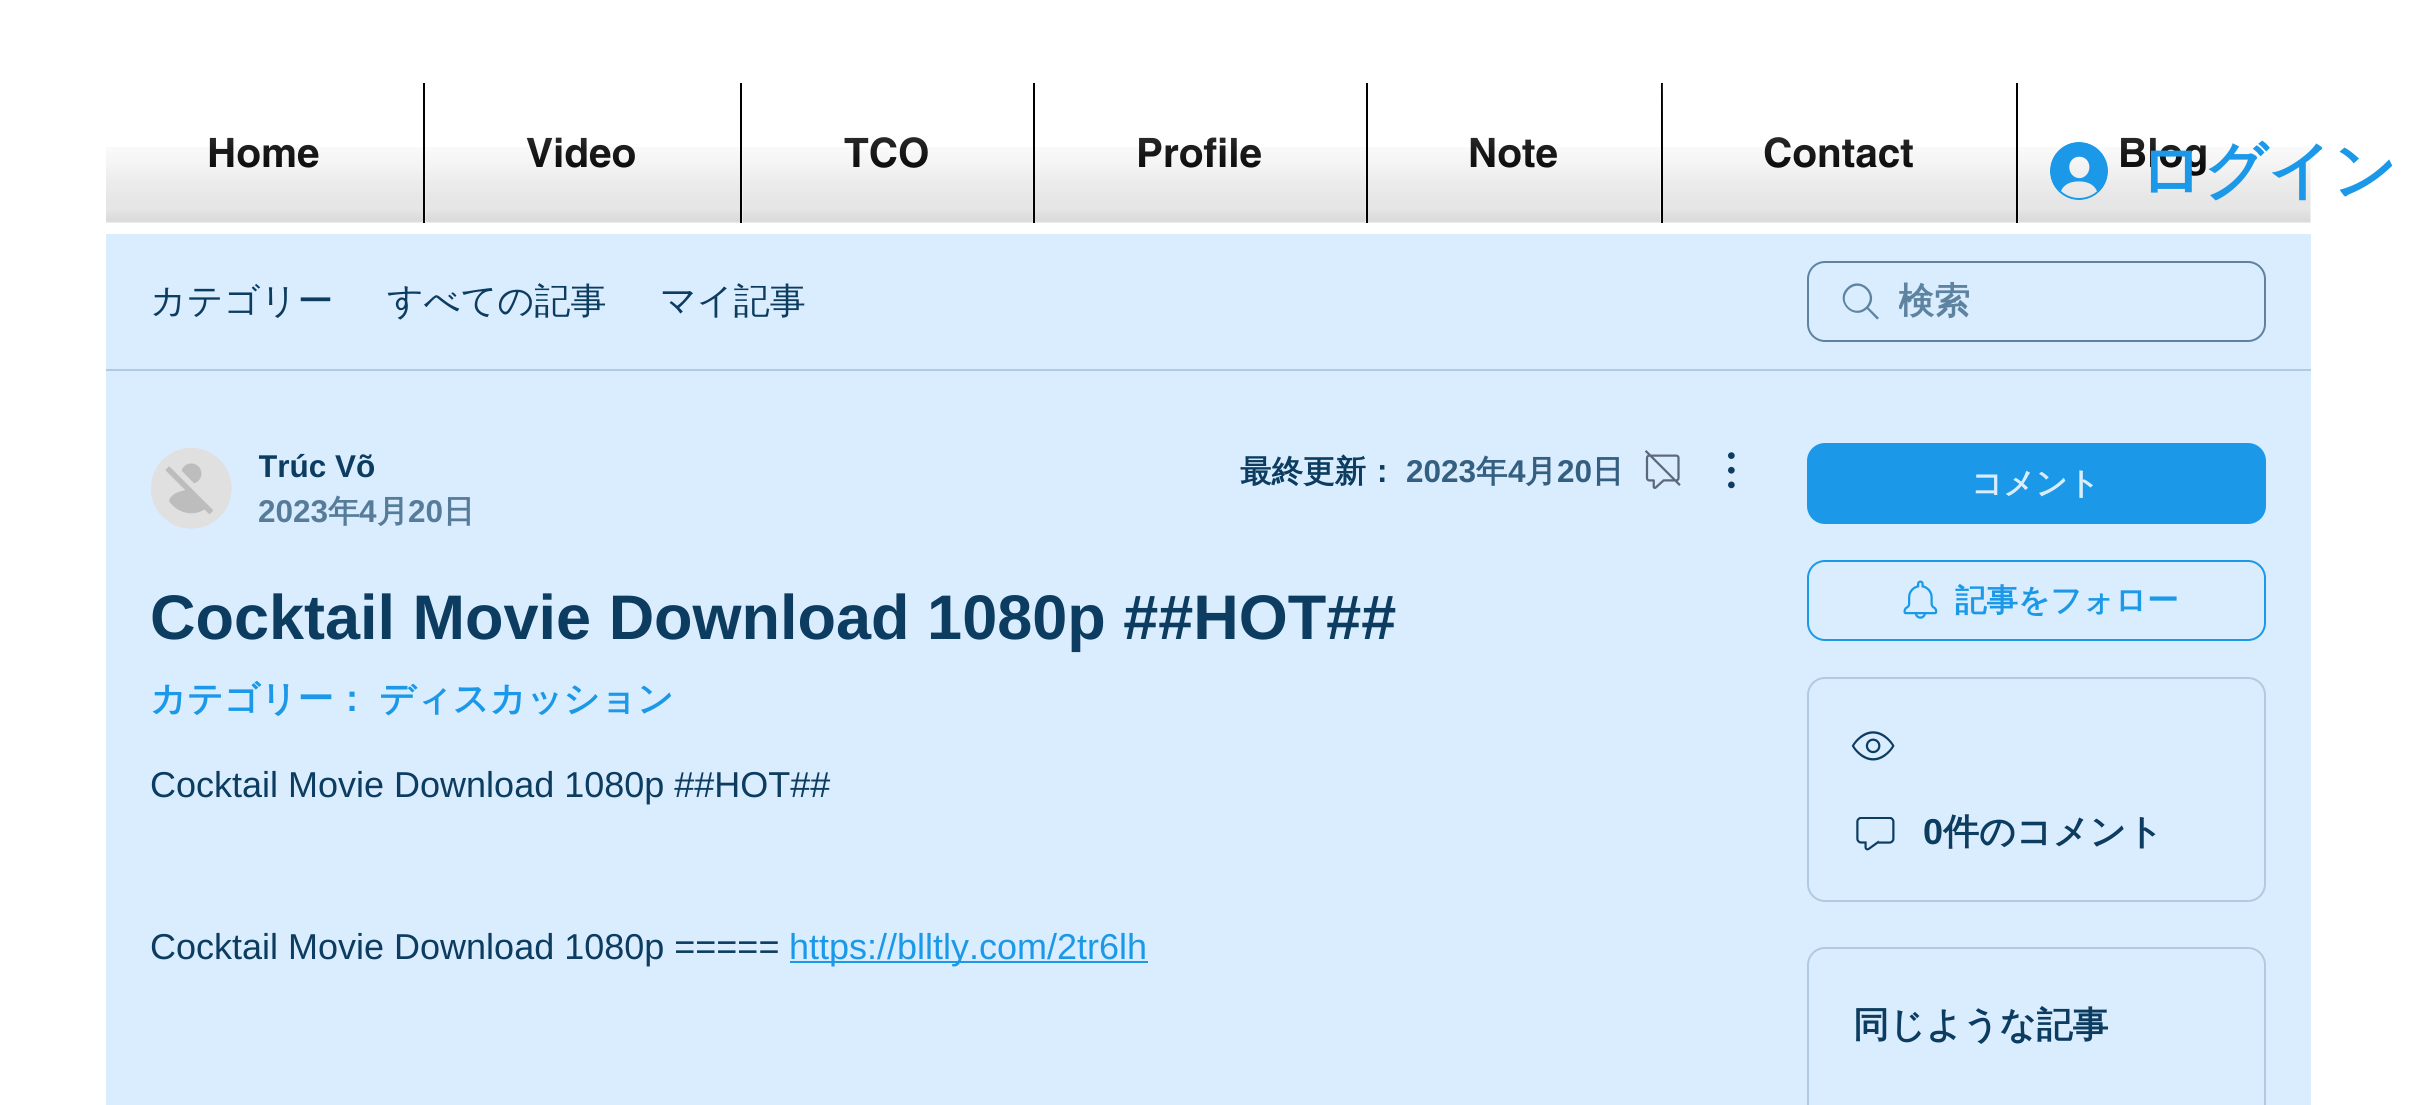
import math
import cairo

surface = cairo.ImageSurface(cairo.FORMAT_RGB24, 2414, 1105)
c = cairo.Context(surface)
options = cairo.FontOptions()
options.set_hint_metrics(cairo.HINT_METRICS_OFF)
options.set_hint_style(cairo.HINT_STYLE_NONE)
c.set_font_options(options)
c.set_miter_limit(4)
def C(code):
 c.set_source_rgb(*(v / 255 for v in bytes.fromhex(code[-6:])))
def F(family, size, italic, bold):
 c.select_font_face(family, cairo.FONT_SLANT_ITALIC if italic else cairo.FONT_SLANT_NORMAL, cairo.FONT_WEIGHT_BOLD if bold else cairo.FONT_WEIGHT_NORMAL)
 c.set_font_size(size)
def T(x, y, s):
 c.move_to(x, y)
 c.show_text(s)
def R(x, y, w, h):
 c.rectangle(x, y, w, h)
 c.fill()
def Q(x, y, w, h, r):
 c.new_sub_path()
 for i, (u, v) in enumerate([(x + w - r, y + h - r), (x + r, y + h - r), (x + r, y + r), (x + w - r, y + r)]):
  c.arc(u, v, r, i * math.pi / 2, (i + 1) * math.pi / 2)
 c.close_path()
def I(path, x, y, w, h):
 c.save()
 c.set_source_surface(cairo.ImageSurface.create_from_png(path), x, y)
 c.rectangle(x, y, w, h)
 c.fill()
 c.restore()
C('ffffff')
c.paint()
F('helvetica',40.5,0,1)
C('000000')
T(207,167,'Home')
I('1.png',209,138,110,30)
I('2.png',106,147,317,76)
R(423,83,2,140)
T(526,167,'Video')
I('3.png',527,137,109,31)
I('4.png',425,147,315,76)
R(740,83,2,140)
T(844,167,'TCO')
I('5.png',844,137,84,31)
I('6.png',742,147,291,76)
R(1033,83,2,140)
T(1136,167,'Profile')
I('7.png',1139,137,122,31)
I('8.png',1035,147,331,76)
R(1366,83,2,140)
T(1468,167,'Note')
I('9.png',1471,138,86,30)
I('10.png',1368,147,293,76)
R(1661,83,2,140)
T(1763,167,'Contact')
I('11.png',1662,83,251,85)
I('12.png',1663,147,353,76)
R(2016,83,2,140)
T(2118,167,'Blog')
I('13.png',2121,138,85,38)
I('14.png',2018,147,293,76)
I('15.png',2050,142,58,58)
F('WenQuanYi Zen Hei',63,0,1)
C('1b99e8')
T(2139,192,'ログイン')
C('daedff')
R(106,234,2205,871)
C('b1cadf')
R(106,369,2205,2)
F('WenQuanYi Zen Hei Medium',36,0,0)
C('0c3c60')
T(150,313,'カテゴリー')
T(387,313,'すべての記事')
T(660,313,'マイ記事')
C('5e83a0')
c.set_fill_rule(cairo.FILL_RULE_EVEN_ODD)
c.new_path()
c.move_to(1848.5,307)
c.curve_to(1837,295.5,1854.5,278,1866,289.5)
c.curve_to(1877.5,301,1860,318.5,1848.5,307)
c.close_path()
c.move_to(1879,318)
c.line_to(1868.5,307.5)
c.curve_to(1880.5,293.5,1860,274.5,1847,288)
c.curve_to(1834,301,1853,321.5,1867,309)
c.line_to(1877,319.5)
c.close_path()
c.fill()
Q(1808,262,457,79,17)
c.stroke()
c.save()
c.set_fill_rule(cairo.FILL_RULE_WINDING)
c.rectangle(1899,279,338,47)
c.clip()
F('WenQuanYi Zen Hei',36,0,1)
T(1898,313,'検索')
c.restore()
I('16.png',151,447,81,82)
c.save()
c.set_fill_rule(cairo.FILL_RULE_WINDING)
c.rectangle(259,443,117,45)
c.clip()
F('Liberation Sans',31.5,0,1)
C('0c3c60')
T(258,477,'Trúc Võ')
c.restore()
F('Liberation Sans',31.5,0,1)
C('567c99')
T(258,522,'2023')
F('WenQuanYi Zen Hei',31.5,0,1)
T(328,522,'年')
F('Liberation Sans',31.5,0,1)
T(359,522,'4')
F('WenQuanYi Zen Hei',31.5,0,1)
T(377,522,'月')
F('Liberation Sans',31.5,0,1)
T(408,522,'20')
F('WenQuanYi Zen Hei',31.5,0,1)
T(443,522,'日')
C('0c3c60')
T(1240,482,'最終更新：')
F('Liberation Sans',31.5,0,1)
C('355f80')
T(1406,482,'2023')
F('WenQuanYi Zen Hei',31.5,0,1)
T(1476,482,'年')
F('Liberation Sans',31.5,0,1)
T(1508,482,'4')
F('WenQuanYi Zen Hei',31.5,0,1)
T(1525,482,'月')
F('Liberation Sans',31.5,0,1)
T(1557,482,'20')
F('WenQuanYi Zen Hei',31.5,0,1)
T(1592,482,'日')
I('17.png',1645,450,36,39)
I('18.png',1728,452,7,37)
F('Liberation Sans',63,0,1)
C('0c3c60')
T(150,639,'Cocktail Movie Download 1080p ##HOT##')
F('WenQuanYi Zen Hei',36,0,1)
C('1b99e8')
T(150,711,'カテゴリー：')
T(379,711,'ディスカッション')
F('Liberation Sans',36,0,0)
C('0c3c60')
T(150,797,'Cocktail Movie Download 1080p ##HOT##')
T(150,959,'Cocktail Movie Download 1080p =====')
C('1b99e8')
R(790,961,358,2)
T(789,959,'https://blltly.com/2tr6lh')
Q(1807,443,459,81,18)
c.fill()
F('WenQuanYi Zen Hei',31.5,0,1)
C('daedff')
T(1971,494,'コメント')
Q(1808,561,457,79,17)
C('1b99e8')
c.stroke()
I('19.png',1903,580,35,39)
T(1955,611,'記事をフォロー')
Q(1808,678,457,223,17)
C('b1cadf')
c.stroke()
I('20.png',1851,731,44,30)
I('21.png',1856,817,39,34)
F('Liberation Sans',36,0,1)
C('0c3c60')
T(1923,844,'0')
F('WenQuanYi Zen Hei',36,0,1)
T(1943,844,'件のコメント')
Q(1808,948,457,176,17)
C('b1cadf')
c.stroke()
C('0c3c60')
T(1853,1037,'同じような記事')
surface.write_to_png('o.png')
